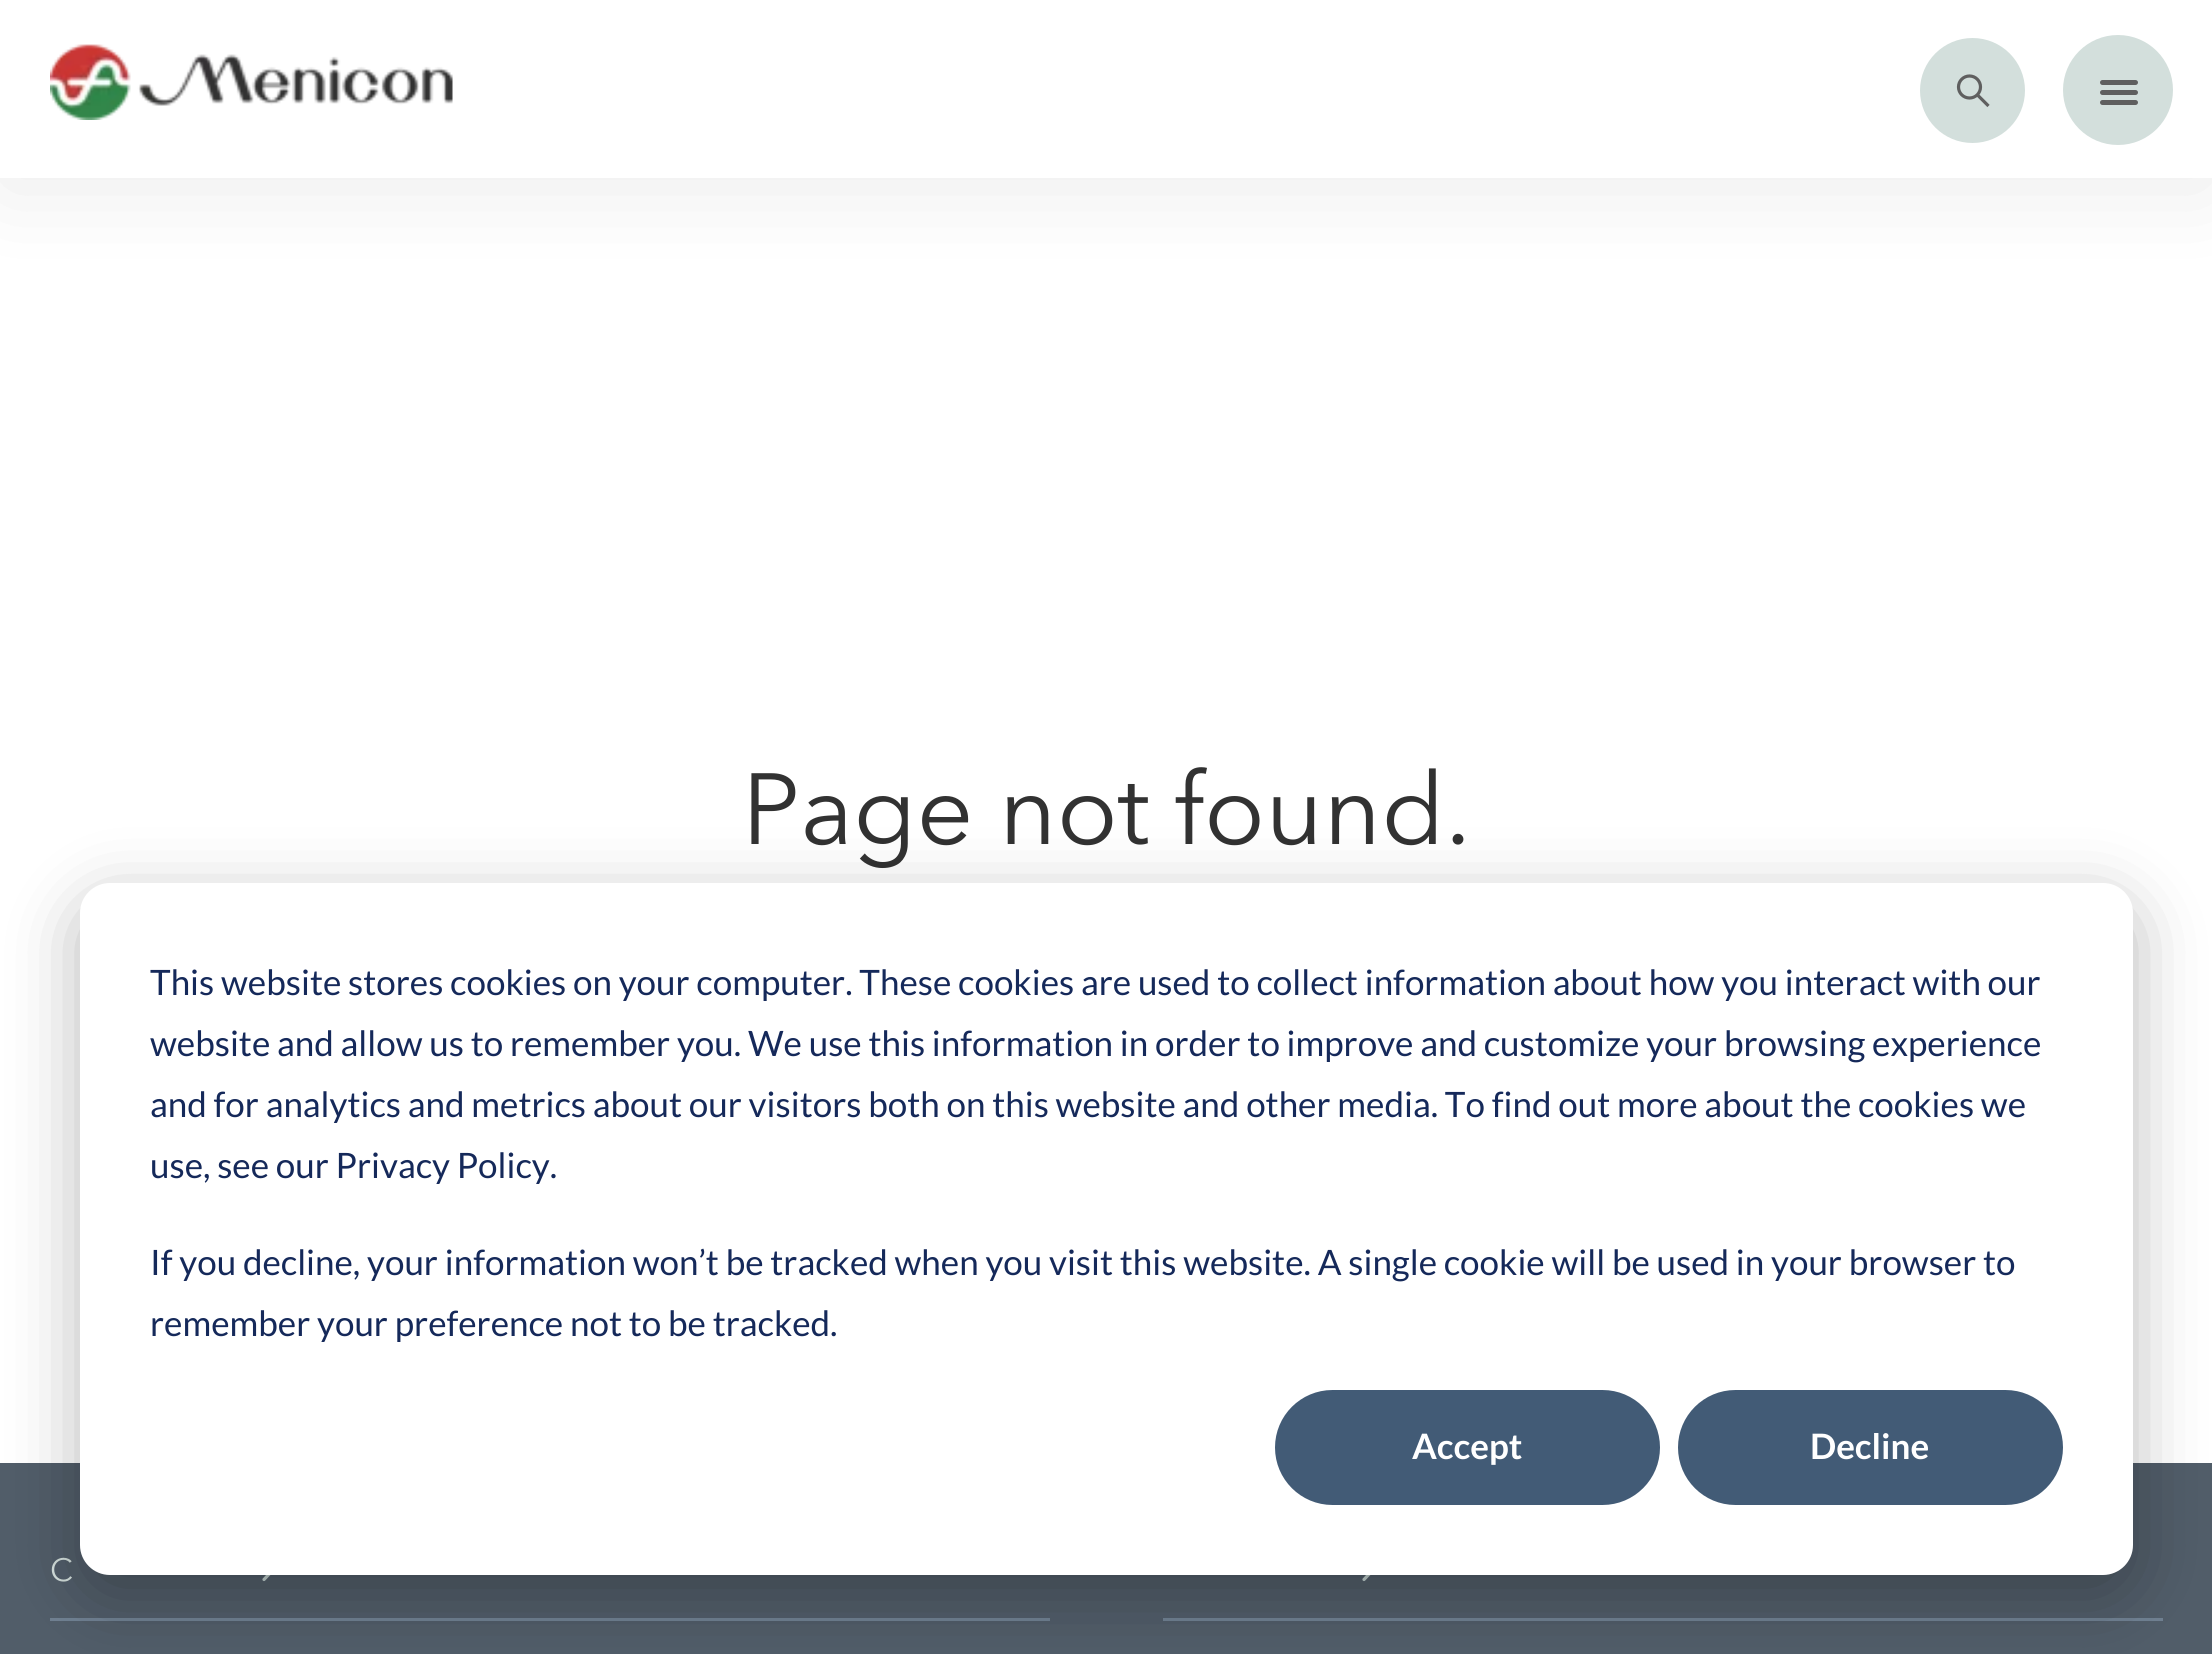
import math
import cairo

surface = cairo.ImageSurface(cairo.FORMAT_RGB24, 2212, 1654)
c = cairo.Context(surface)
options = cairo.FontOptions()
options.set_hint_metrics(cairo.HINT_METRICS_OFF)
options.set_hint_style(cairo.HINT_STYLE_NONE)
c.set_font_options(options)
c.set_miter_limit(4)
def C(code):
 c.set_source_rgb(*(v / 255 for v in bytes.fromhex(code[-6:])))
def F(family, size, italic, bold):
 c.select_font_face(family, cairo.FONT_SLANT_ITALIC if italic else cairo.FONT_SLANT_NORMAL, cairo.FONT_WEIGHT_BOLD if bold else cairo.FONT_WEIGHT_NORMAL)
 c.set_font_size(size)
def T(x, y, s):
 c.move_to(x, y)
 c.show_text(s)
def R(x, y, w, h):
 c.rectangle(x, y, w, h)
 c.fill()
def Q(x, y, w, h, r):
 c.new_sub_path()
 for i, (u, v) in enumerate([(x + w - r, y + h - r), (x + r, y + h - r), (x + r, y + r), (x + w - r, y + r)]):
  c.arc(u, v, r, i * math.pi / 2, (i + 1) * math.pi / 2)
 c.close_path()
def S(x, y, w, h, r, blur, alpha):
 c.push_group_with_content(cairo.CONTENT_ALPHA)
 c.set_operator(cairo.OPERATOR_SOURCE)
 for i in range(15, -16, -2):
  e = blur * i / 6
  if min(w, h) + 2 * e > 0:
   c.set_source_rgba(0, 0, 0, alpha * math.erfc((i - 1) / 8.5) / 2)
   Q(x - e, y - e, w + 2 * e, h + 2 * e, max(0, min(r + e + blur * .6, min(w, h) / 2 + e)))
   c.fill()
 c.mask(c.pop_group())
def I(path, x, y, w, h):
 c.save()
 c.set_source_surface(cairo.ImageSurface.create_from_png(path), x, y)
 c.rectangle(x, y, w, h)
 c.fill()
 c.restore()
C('ffffff')
c.paint()
C('000000')
S(0,10,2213,178,0,47.5,.08)
C('ffffff')
R(0,0,2212,178)
I('1.png',50,44,403,76)
C('d3dfdc')
c.arc(1972.5,90.5,52.5,0,2 * math.pi)
c.fill()
c.arc(1969.5,87,11,0,2 * math.pi)
C('5f5f5f')
c.set_line_width(3.2)
c.stroke()
c.new_path()
c.move_to(1977.5,95)
c.line_to(1988.5,106)
c.stroke()
C('d3dfdc')
c.arc(2118,90,55,0,2 * math.pi)
c.fill()
C('5f5f5f')
Q(2100,80,38,5,2.5)
c.fill()
Q(2100,90,38,5,2.5)
c.fill()
Q(2100,100,38,5,2.5)
c.fill()
F('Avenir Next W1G',100,0,0)
C('323232')
T(742,844,'Page not found.')
C('515d69')
R(0,1463,2212,191)
C('708192')
R(50,1618,1000,3)
F('Avenir Next W1G',32,0,0)
C('d3dfdc')
T(50,1581,'C')
c.new_path()
c.move_to(264,1563)
c.line_to(272,1571)
c.line_to(264,1579.5)
C('c2d1ce')
c.set_line_cap(cairo.LINE_CAP_ROUND)
c.set_line_join(cairo.LINE_JOIN_ROUND)
c.stroke()
C('708192')
R(1163,1618,1000,3)
c.new_path()
c.move_to(1364,1563)
c.line_to(1372,1571)
c.line_to(1364,1579.5)
C('c2d1ce')
c.stroke()
C('000000')
S(80,903,2053,692,30,35,.28)
C('ffffff')
Q(80,883,2053,692,30)
c.fill()
F('Lato',35,0,0)
C('15295a')
T(150,995,'This website stores cookies on your computer. These cookies are used to collect information about how you interact with our')
T(150,1056,'website and allow us to remember you. We use this information in order to improve and customize your browsing experience')
T(150,1117,'and for analytics and metrics about our visitors both on this website and other media. To find out more about the cookies we')
T(150,1178,'use, see our Privacy Policy.')
T(150,1275,'If you decline, your information won’t be tracked when you visit this website. A single cookie will be used in your browser to')
T(150,1336,'remember your preference not to be tracked.')
C('425b76')
Q(1276.5,1391.5,382,112,56)
c.fill_preserve()
c.set_line_width(3)
c.set_line_cap(cairo.LINE_CAP_BUTT)
c.set_line_join(cairo.LINE_JOIN_MITER)
c.stroke()
F('Lato',35,0,1)
C('ffffff')
T(1412,1459,'Accept')
C('425b76')
Q(1679.5,1391.5,382,112,56)
c.fill_preserve()
c.stroke()
C('ffffff')
T(1810,1459,'Decline')
surface.write_to_png('o.png')
